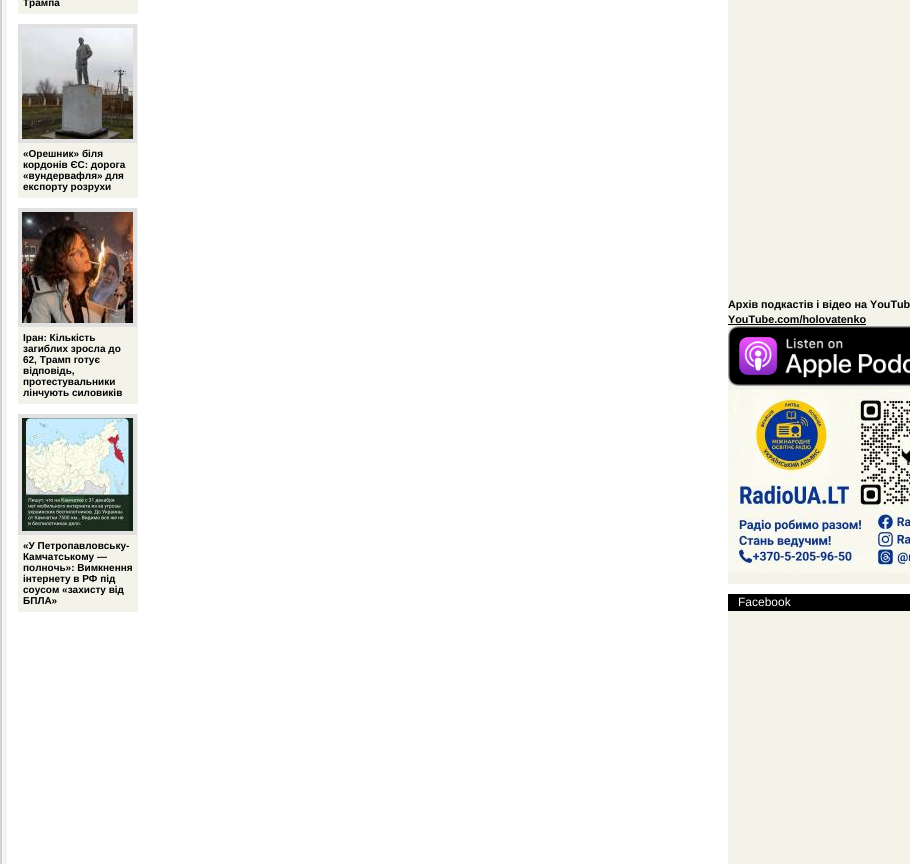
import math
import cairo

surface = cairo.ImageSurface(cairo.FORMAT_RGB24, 910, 864)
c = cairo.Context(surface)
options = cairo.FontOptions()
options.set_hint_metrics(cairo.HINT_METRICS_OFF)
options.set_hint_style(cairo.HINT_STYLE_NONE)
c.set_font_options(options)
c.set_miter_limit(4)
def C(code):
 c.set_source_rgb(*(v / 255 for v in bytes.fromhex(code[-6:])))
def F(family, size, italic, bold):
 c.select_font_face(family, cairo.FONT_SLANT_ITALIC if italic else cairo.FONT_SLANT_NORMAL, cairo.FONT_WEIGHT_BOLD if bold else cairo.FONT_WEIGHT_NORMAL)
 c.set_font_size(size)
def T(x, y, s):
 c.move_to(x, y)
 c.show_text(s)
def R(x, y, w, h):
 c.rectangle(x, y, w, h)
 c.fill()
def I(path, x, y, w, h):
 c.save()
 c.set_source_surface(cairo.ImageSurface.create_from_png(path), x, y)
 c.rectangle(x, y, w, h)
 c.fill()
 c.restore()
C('ffffff')
c.paint()
I('1.png',0,0,7,864)
C('f3f3e9')
R(18,0,120,14)
F('Liberation Sans',10,0,1)
C('000000')
T(23,6,'Трампа')
C('f3f3e9')
R(18,24,120,174)
C('e1e1e1')
R(18,24,119,119)
I('2.png',22,28,111,111)
C('000000')
T(23,157,'«Орешник» біля')
T(23,168,'кордонів ЄС: дорога')
T(23,179,'«вундервафля» для')
T(23,190,'експорту розрухи')
C('f3f3e9')
R(18,208,120,196)
C('e1e1e1')
R(18,208,119,119)
I('3.png',22,212,111,111)
C('000000')
T(23,341,'Іран: Кількість')
T(23,352,'загиблих зросла до')
T(23,363,'62, Трамп готує')
T(23,374,'відповідь,')
T(23,385,'протестувальники')
T(23,396,'лінчують силовиків')
C('f3f3e9')
R(18,414,120,198)
C('e1e1e1')
R(18,414,119,121)
I('4.png',22,418,111,113)
C('000000')
T(23,549,'«У Петропавловську-')
T(23,560,'Камчатському —')
T(23,571,'полночь»: Вимкнення')
T(23,582,'інтернету в РФ під')
T(23,593,'соусом «захисту від')
T(23,604,'БПЛА»')
C('f3f3e9')
R(728,0,182,584)
F('Liberation Sans',10.8,0,1)
C('000000')
T(728,308,'Архів подкастів і відео на YouTub')
T(728,323,'YouTube.com/holovatenko')
R(728,324,138,1)
I('5.png',728,326,182,60)
I('6.png',728,389,182,184)
C('f3f3e9')
R(728,611,182,253)
C('000000')
R(728,594,182,17)
F('Liberation Sans',12,0,0)
C('ffffff')
T(738,606,'Facebook')
surface.write_to_png('o.png')
